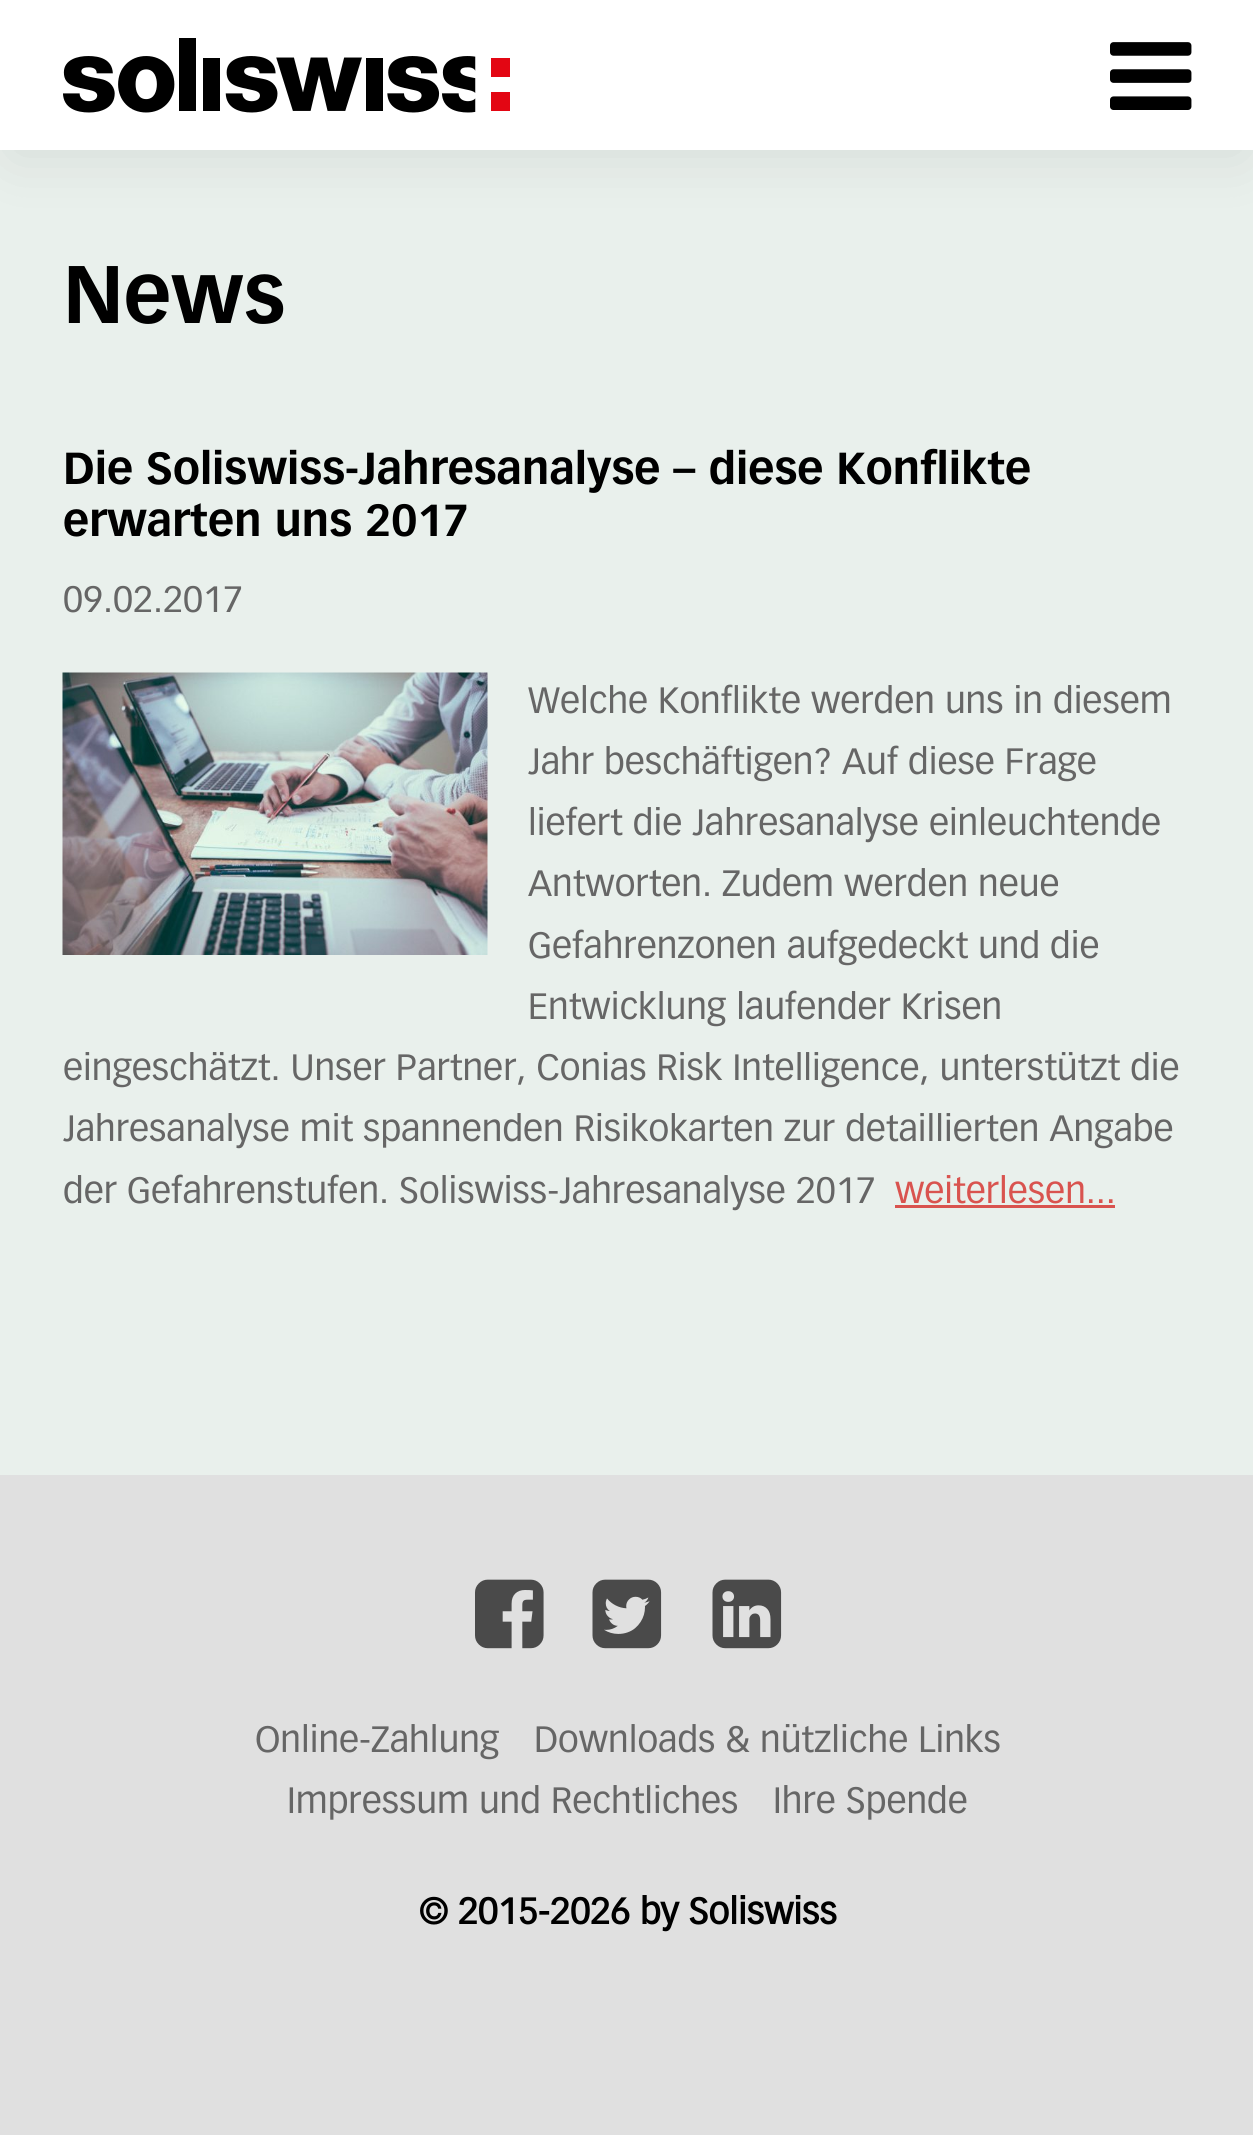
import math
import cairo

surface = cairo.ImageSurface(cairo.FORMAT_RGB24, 1253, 2135)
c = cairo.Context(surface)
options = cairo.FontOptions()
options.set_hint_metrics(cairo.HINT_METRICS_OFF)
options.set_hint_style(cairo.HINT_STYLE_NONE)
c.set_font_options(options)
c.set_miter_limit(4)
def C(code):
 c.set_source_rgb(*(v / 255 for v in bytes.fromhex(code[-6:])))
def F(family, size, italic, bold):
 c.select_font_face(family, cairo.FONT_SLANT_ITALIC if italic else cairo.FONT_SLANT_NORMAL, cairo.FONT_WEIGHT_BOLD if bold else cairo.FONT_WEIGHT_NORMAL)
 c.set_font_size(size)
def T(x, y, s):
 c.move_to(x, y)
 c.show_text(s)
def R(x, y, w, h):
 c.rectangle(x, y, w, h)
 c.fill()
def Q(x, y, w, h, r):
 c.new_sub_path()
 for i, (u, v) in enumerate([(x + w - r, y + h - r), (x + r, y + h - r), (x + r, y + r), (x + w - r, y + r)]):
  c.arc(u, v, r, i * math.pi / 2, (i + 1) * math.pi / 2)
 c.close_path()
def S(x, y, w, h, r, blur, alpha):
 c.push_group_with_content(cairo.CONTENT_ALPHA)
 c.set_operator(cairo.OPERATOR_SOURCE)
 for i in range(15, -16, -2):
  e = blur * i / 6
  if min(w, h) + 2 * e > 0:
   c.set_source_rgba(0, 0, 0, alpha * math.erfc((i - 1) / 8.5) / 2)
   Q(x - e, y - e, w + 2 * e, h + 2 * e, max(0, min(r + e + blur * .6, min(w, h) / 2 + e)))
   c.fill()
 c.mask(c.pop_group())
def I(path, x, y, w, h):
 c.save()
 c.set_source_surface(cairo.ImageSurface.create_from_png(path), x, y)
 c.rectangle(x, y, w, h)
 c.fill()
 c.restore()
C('e0e0e0')
c.paint()
C('e9f0ec')
R(0,150,1253,1325)
C('000000')
S(13,28,1230,125,0,30,.1)
C('ffffff')
R(0,0,1253,150)
I('1.png',63,38,447,75)
I('2.png',1110,42,82,68)
F('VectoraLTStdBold',80,0,1)
C('000000')
T(63,323,'News')
F('VectoraLTStdBold',44,0,1)
T(63,484,'Die Soliswiss-Jahresanalyse – diese Konflikte')
T(63,536,'erwarten uns 2017')
F('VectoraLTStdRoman',36,0,0)
C('666666')
T(63,612,'09.02.2017')
I('3.png',62,672,426,283)
T(528,713,'Welche Konflikte werden uns in diesem')
T(528,774,'Jahr beschäftigen? Auf diese Frage')
T(528,835,'liefert die Jahresanalyse einleuchtende')
T(528,896,'Antworten. Zudem werden neue')
T(528,958,'Gefahrenzonen aufgedeckt und die')
T(528,1019,'Entwicklung laufender Krisen')
T(63,1080,'eingeschätzt. Unser Partner, Conias Risk Intelligence, unterstützt die')
T(63,1141,'Jahresanalyse mit spannenden Risikokarten zur detaillierten Angabe')
T(63,1203,'der Gefahrenstufen. Soliswiss-Jahresanalyse 2017')
C('d9534f')
T(895,1203,'weiterlesen...')
R(895,1205,220,3)
I('4.png',475,1579,69,70)
I('5.png',592,1579,70,70)
I('6.png',712,1579,70,70)
C('666666')
T(255,1752,'Online-Zahlung')
T(534,1752,'Downloads & nützliche Links')
T(287,1813,'Impressum und Rechtliches')
T(773,1813,'Ihre Spende')
F('VectoraLTStdRoman',36,0,1)
C('000000')
T(419,1924,'© 2015-2026 by Soliswiss')
surface.write_to_png('o.png')
